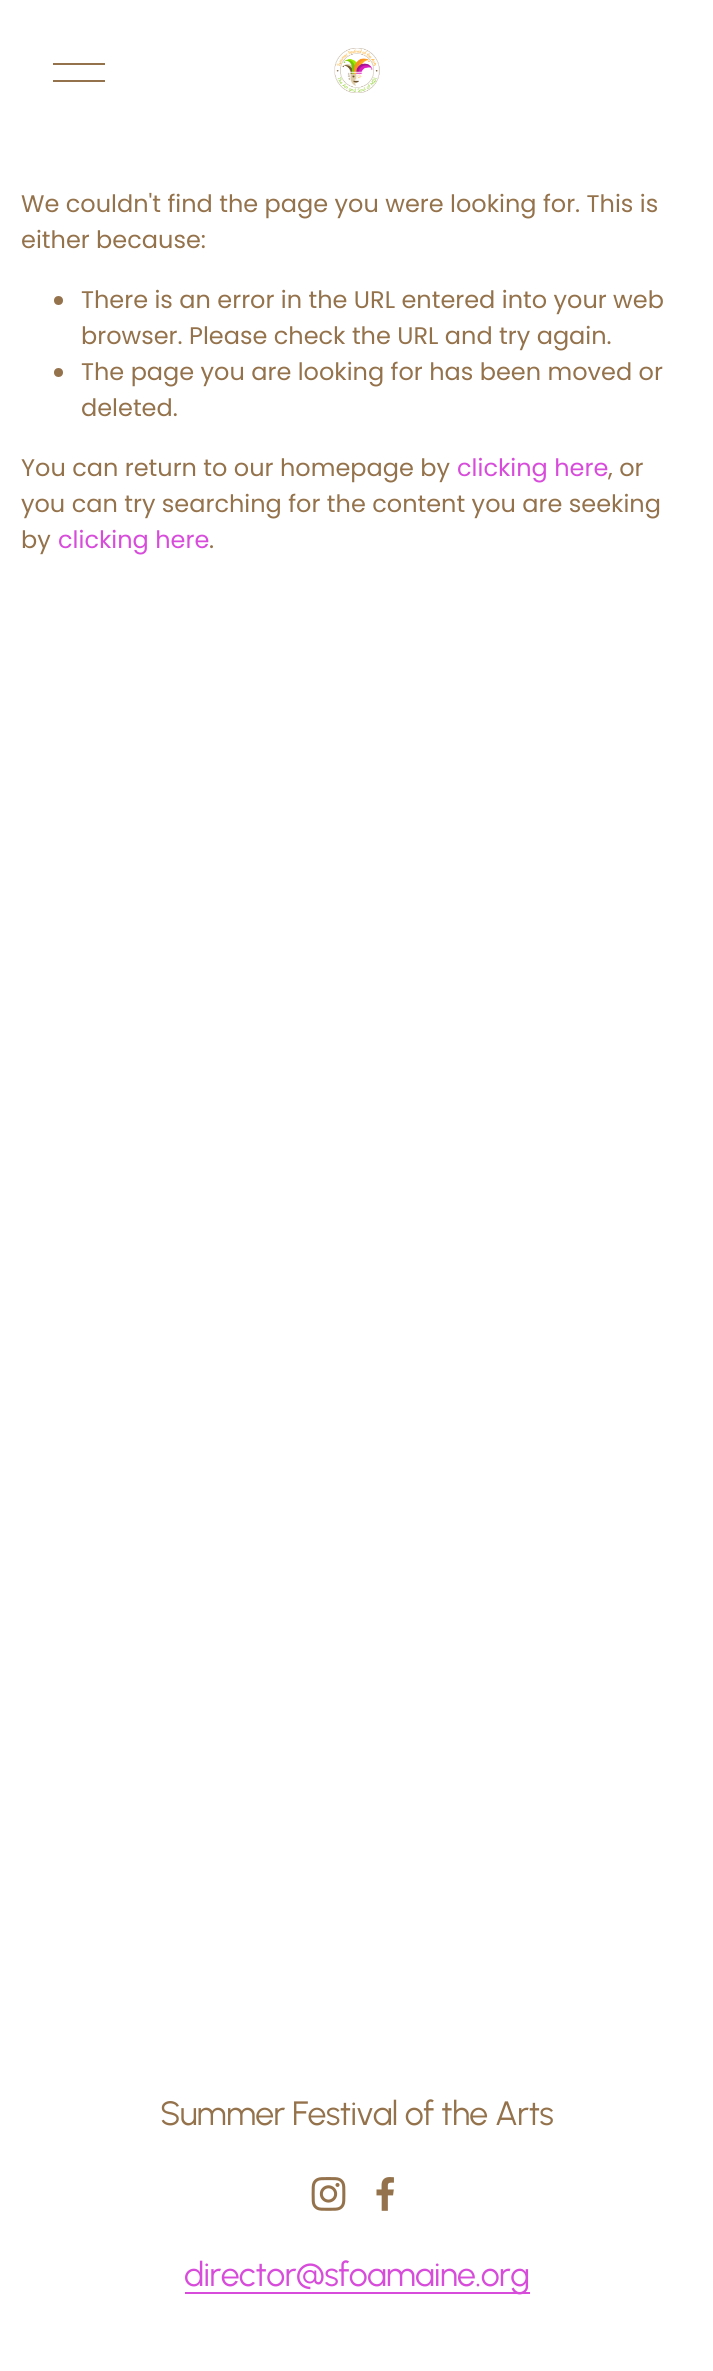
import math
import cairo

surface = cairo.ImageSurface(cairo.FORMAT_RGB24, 713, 2371)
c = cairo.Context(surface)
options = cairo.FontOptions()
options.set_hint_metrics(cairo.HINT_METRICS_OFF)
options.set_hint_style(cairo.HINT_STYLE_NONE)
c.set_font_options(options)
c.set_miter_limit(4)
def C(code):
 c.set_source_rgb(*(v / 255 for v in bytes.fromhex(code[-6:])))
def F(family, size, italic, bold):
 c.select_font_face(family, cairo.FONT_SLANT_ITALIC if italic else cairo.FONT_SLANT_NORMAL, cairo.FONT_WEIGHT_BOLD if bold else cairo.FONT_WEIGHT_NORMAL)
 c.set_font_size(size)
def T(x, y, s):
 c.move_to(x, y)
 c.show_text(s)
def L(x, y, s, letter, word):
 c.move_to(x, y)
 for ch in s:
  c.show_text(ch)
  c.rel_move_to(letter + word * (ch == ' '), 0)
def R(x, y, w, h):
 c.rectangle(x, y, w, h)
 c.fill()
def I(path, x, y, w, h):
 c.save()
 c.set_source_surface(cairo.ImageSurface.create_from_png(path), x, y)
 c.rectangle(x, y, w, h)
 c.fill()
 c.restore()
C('ffffff')
c.paint()
C('94724b')
R(53,63,52,2)
R(53,80,52,2)
I('1.png',334,48,46,45)
F('Poppins',24,0,0)
T(21,212,'We couldn\'t find the page you were looking for. This is')
T(21,248,'either because:')
c.new_path()
c.arc(58.5,300.5,4.5,0,2 * math.pi)
c.fill()
T(81,308,'There is an error in the URL entered into your web')
T(81,344,'browser. Please check the URL and try again.')
c.new_path()
c.arc(58.5,372.5,4.5,0,2 * math.pi)
c.fill()
T(81,380,'The page you are looking for has been moved or')
T(81,416,'deleted.')
T(21,476,'You can return to our homepage by')
C('d74cda')
T(457,476,'clicking here')
C('94724b')
T(608,476,', or')
T(21,512,'you can try searching for the content you are seeking')
T(21,548,'by')
C('d74cda')
T(58,548,'clicking here')
C('94724b')
T(209,548,'.')
F('Urbanist',33.75,0,0)
L(160,2125,'Summer Festival of the Arts',-.7,0)
I('2.png',311,2177,35,34)
I('3.png',376,2177,18,34)
C('d74cda')
R(185,2292,345,2)
L(184,2286,'director@sfoamaine.org',-.7,0)
surface.write_to_png('o.png')
